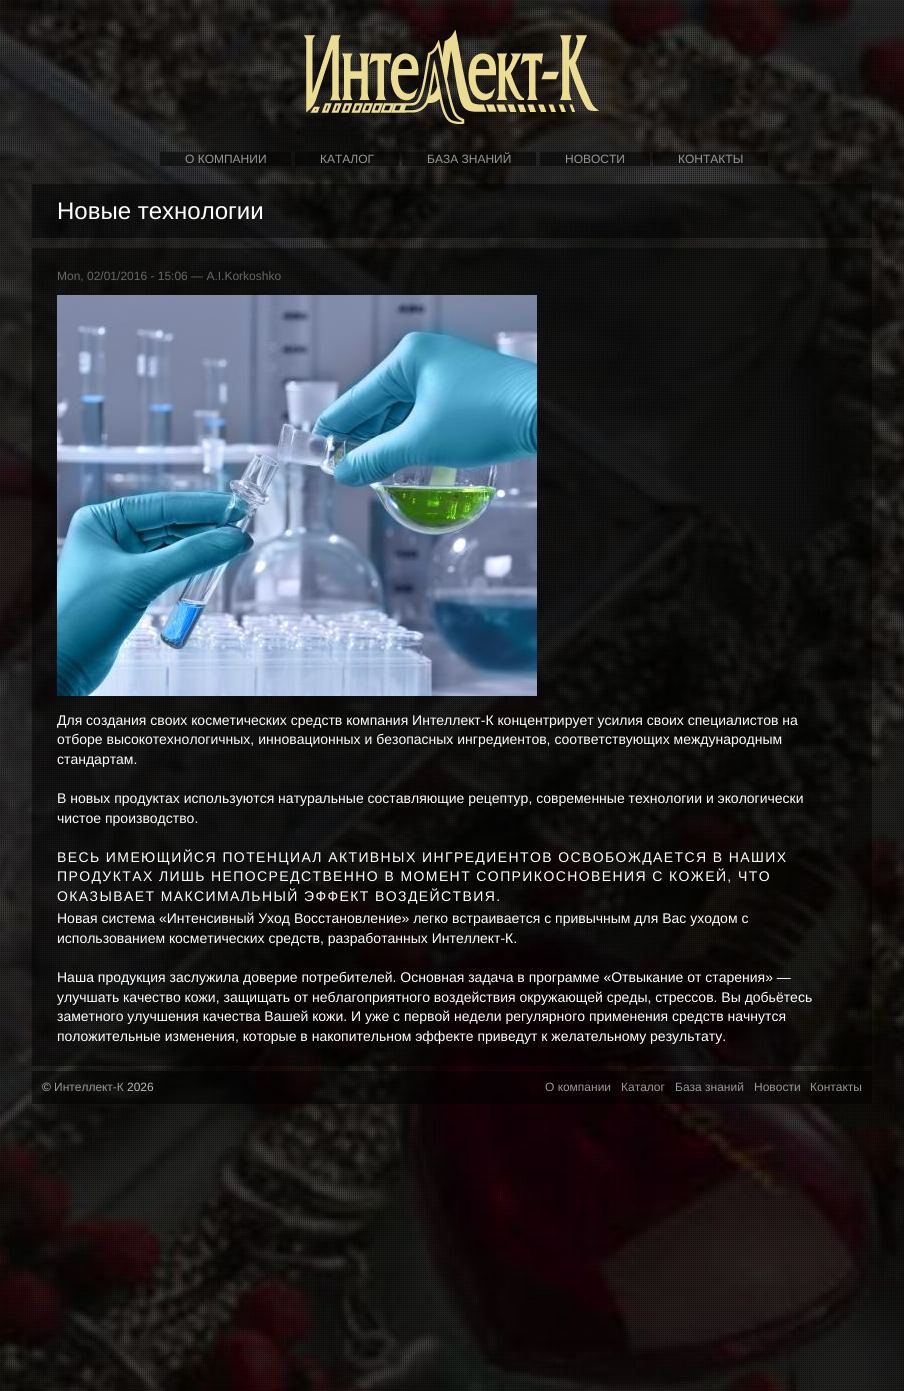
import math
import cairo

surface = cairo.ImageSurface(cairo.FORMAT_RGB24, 904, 1391)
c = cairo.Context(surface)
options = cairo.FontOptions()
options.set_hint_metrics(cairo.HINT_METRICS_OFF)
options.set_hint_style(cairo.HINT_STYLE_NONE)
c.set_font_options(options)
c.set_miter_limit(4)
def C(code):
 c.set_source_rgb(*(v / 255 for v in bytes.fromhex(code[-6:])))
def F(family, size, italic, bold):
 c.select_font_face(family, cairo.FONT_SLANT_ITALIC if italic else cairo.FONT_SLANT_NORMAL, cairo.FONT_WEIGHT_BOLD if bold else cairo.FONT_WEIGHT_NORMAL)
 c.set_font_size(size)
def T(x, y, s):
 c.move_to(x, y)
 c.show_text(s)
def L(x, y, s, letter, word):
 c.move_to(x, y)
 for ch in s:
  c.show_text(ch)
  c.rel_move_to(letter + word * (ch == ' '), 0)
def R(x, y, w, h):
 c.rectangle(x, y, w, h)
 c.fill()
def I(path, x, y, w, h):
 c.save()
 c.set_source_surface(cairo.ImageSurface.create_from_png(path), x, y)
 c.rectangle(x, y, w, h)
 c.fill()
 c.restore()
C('ffffff')
c.paint()
I('1.png',0,0,904,1391)
I('2.png',1,1,903,1389)
I('3.png',304,30,295,94)
c.set_source_rgba(0,0,0,0.5)
R(160,152,131,14)
F('Liberation Sans',12,0,0)
C('969696')
T(185,163,'О КОМПАНИИ')
c.set_source_rgba(0,0,0,0.5)
R(295,152,104,14)
C('969696')
T(320,163,'КАТАЛОГ')
c.set_source_rgba(0,0,0,0.5)
R(402,152,134,14)
C('969696')
T(427,163,'БАЗА ЗНАНИЙ')
c.set_source_rgba(0,0,0,0.5)
R(540,152,110,14)
C('969696')
T(565,163,'НОВОСТИ')
c.set_source_rgba(0,0,0,0.5)
R(653,152,115,14)
C('969696')
T(678,163,'КОНТАКТЫ')
c.set_source_rgba(0,0,0,0.5)
R(32,184,840,54)
F('Liberation Sans',24,0,0)
C('ffffff')
T(57,219,'Новые технологии')
c.set_source_rgba(0,0,0,0.5)
R(32,248,840,818)
F('Liberation Sans',12,0,0)
C('666666')
T(57,280,'Mon, 02/01/2016 - 15:06 — A.I.Korkoshko')
I('4.png',57,295,480,401)
F('Liberation Sans',14,0,0)
C('ffffff')
T(57,725,'Для создания своих косметических средств компания Интеллект-К концентрирует усилия своих специалистов на')
T(57,744,'отборе высокотехнологичных, инновационных и безопасных ингредиентов, соответствующих международным')
T(57,764,'стандартам.')
T(57,803,'В новых продуктах используются натуральные составляющие рецептур, современные технологии и экологически')
T(57,823,'чистое производство.')
L(57,862,'ВЕСЬ ИМЕЮЩИЙСЯ ПОТЕНЦИАЛ АКТИВНЫХ ИНГРЕДИЕНТОВ ОСВОБОЖДАЕТСЯ В НАШИХ',1.4,0)
L(57,881,'ПРОДУКТАХ ЛИШЬ НЕПОСРЕДСТВЕННО В МОМЕНТ СОПРИКОСНОВЕНИЯ С КОЖЕЙ, ЧТО',1.4,0)
L(57,901,'ОКАЗЫВАЕТ МАКСИМАЛЬНЫЙ ЭФФЕКТ ВОЗДЕЙСТВИЯ.',1.4,0)
T(57,923,'Новая система «Интенсивный Уход Восстановление» легко встраивается с привычным для Вас уходом с')
T(57,943,'использованием косметических средств, разработанных Интеллект-К.')
T(57,982,'Наша продукция заслужила доверие потребителей. Основная задача в программе «Отвыкание от старения» —')
T(57,1002,'улучшать качество кожи, защищать от неблагоприятного воздействия окружающей среды, стрессов. Вы добьётесь')
T(57,1021,'заметного улучшения качества Вашей кожи. И уже с первой недели регулярного применения средств начнутся')
T(57,1041,'положительные изменения, которые в накопительном эффекте приведут к желательному результату.')
c.set_source_rgba(0,0,0,0.5)
R(32,1071,840,33)
F('Liberation Sans',12,0,0)
C('b7b7b7')
T(42,1091,'©')
C('969696')
T(54,1091,'Интеллект-К')
C('b7b7b7')
T(127,1091,'2026')
C('969696')
T(545,1091,'О компании')
T(621,1091,'Каталог')
T(675,1091,'База знаний')
T(754,1091,'Новости')
T(810,1091,'Контакты')
surface.write_to_png('o.png')
